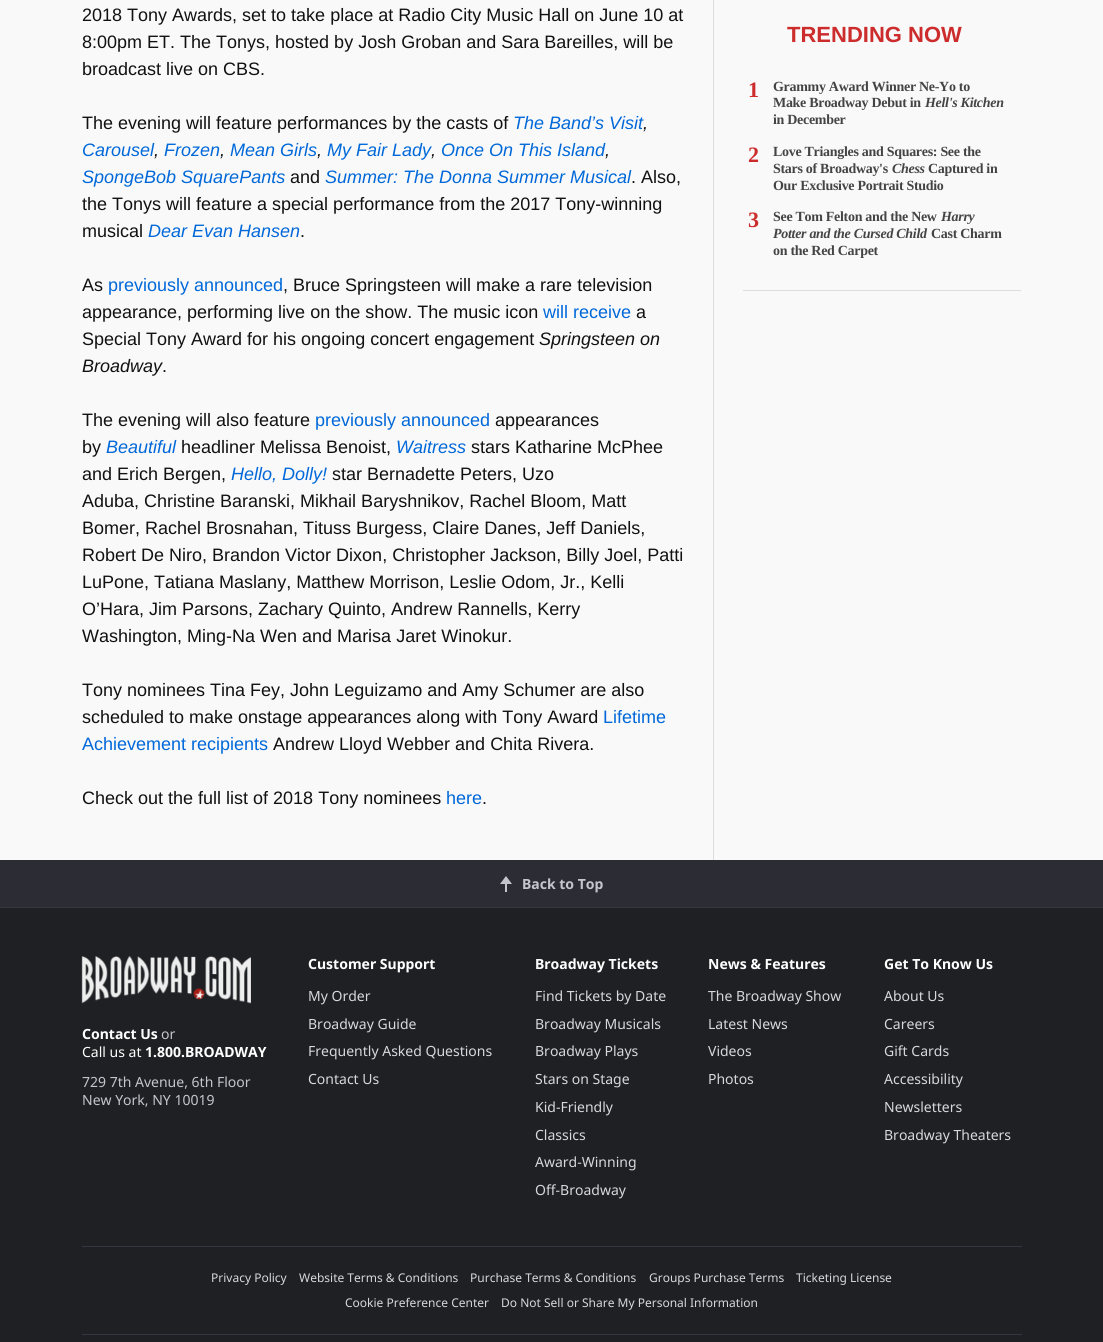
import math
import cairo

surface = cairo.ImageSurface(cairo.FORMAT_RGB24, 1103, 1342)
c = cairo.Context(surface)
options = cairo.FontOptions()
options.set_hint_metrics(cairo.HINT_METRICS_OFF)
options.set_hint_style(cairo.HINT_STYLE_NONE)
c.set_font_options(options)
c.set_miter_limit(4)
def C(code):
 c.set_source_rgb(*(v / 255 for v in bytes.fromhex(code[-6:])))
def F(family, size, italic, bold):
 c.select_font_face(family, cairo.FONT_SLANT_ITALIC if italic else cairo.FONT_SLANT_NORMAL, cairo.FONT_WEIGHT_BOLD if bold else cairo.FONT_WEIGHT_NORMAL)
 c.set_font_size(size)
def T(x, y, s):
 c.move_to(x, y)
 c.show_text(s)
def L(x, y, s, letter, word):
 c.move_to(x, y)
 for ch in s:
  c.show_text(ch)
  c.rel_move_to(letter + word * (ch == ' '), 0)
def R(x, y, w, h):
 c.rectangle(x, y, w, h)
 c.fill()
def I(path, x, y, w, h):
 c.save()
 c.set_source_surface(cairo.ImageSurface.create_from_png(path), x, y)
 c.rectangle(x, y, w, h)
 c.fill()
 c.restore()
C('f9f9f9')
c.paint()
F('Liberation Sans',18,0,0)
C('111111')
T(82,21,'2018 Tony Awards, set to take place at Radio City Music Hall on June 10 at')
T(82,48,'8:00pm ET. The Tonys, hosted by Josh Groban and Sara Bareilles, will be')
T(82,75,'broadcast live on CBS.')
T(82,129,'The evening will feature performances by the casts of')
F('Liberation Sans',18,1,0)
C('0068d9')
T(513,129,'The Band’s Visit')
C('111111')
T(643,129,',')
C('0068d9')
T(82,156,'Carousel')
C('111111')
T(154,156,',')
C('0068d9')
T(164,156,'Frozen')
C('111111')
T(220,156,',')
C('0068d9')
T(230,156,'Mean Girls')
C('111111')
T(317,156,',')
C('0068d9')
T(327,156,'My Fair Lady')
C('111111')
T(431,156,',')
C('0068d9')
T(441,156,'Once On This Island')
C('111111')
T(605,156,',')
C('0068d9')
T(82,183,'SpongeBob SquarePants')
F('Liberation Sans',18,0,0)
C('111111')
T(290,183,'and')
F('Liberation Sans',18,1,0)
C('0068d9')
T(325,183,'Summer: The Donna Summer Musical')
F('Liberation Sans',18,0,0)
C('111111')
T(631,183,'. Also,')
T(82,210,'the Tonys will feature a special performance from the 2017 Tony-winning')
T(82,237,'musical')
F('Liberation Sans',18,1,0)
C('0068d9')
T(148,237,'Dear Evan Hansen')
F('Liberation Sans',18,0,0)
C('111111')
T(300,237,'.')
T(82,291,'As')
C('0068d9')
T(108,291,'previously announced')
C('111111')
T(283,291,', Bruce Springsteen will make a rare television')
T(82,318,'appearance, performing live on the show. The music icon')
C('0068d9')
T(543,318,'will receive')
C('111111')
T(636,318,'a')
T(82,345,'Special Tony Award for his ongoing concert engagement')
F('Liberation Sans',18,1,0)
T(539,345,'Springsteen on')
T(82,372,'Broadway')
F('Liberation Sans',18,0,0)
T(162,372,'.')
T(82,426,'The evening will also feature')
C('0068d9')
T(315,426,'previously announced')
C('111111')
T(495,426,'appearances')
T(82,453,'by')
F('Liberation Sans',18,1,0)
C('0068d9')
T(106,453,'Beautiful')
F('Liberation Sans',18,0,0)
C('111111')
T(181,453,'headliner Melissa Benoist,')
F('Liberation Sans',18,1,0)
C('0068d9')
T(396,453,'Waitress')
F('Liberation Sans',18,0,0)
C('111111')
T(471,453,'stars Katharine McPhee')
T(82,480,'and Erich Bergen,')
F('Liberation Sans',18,1,0)
C('0068d9')
T(231,480,'Hello, Dolly!')
F('Liberation Sans',18,0,0)
C('111111')
T(332,480,'star Bernadette Peters, Uzo')
T(82,507,'Aduba, Christine Baranski, Mikhail Baryshnikov, Rachel Bloom, Matt')
T(82,534,'Bomer, Rachel Brosnahan, Tituss Burgess, Claire Danes, Jeff Daniels,')
T(82,561,'Robert De Niro, Brandon Victor Dixon, Christopher Jackson, Billy Joel, Patti')
T(82,588,'LuPone, Tatiana Maslany, Matthew Morrison, Leslie Odom, Jr., Kelli')
T(82,615,'O’Hara, Jim Parsons, Zachary Quinto, Andrew Rannells, Kerry')
T(82,642,'Washington, Ming-Na Wen and Marisa Jaret Winokur.')
T(82,696,'Tony nominees Tina Fey, John Leguizamo and Amy Schumer are also')
T(82,723,'scheduled to make onstage appearances along with Tony Award')
C('0068d9')
T(603,723,'Lifetime')
T(82,750,'Achievement recipients')
C('111111')
T(273,750,'Andrew Lloyd Webber and Chita Rivera.')
T(82,804,'Check out the full list of 2018 Tony nominees')
C('0068d9')
T(446,804,'here')
C('111111')
T(482,804,'.')
C('dddddd')
R(713,0,1,860)
F('Liberation Sans',22,0,1)
C('cc2c2c')
T(787,42,'TRENDING NOW')
F('Liberation Serif',22,0,1)
L(748,97,'1',-1,0)
F('Liberation Serif',14,0,1)
C('444444')
L(773,91,'Grammy Award Winner Ne-Yo to',-.3,0)
L(773,107,'Make Broadway Debut in',-.3,0)
F('Liberation Serif',14,1,1)
L(925,107,'Hell\'s Kitchen',-.3,0)
F('Liberation Serif',14,0,1)
L(773,124,'in December',-.3,0)
F('Liberation Serif',22,0,1)
C('cc2c2c')
L(748,162,'2',-1,0)
F('Liberation Serif',14,0,1)
C('444444')
L(773,156,'Love Triangles and Squares: See the',-.3,0)
L(773,173,'Stars of Broadway\'s',-.3,0)
F('Liberation Serif',14,1,1)
L(892,173,'Chess',-.3,0)
F('Liberation Serif',14,0,1)
L(928,173,'Captured in',-.3,0)
L(773,190,'Our Exclusive Portrait Studio',-.3,0)
F('Liberation Serif',22,0,1)
C('cc2c2c')
L(748,227,'3',-1,0)
F('Liberation Serif',14,0,1)
C('444444')
L(773,221,'See Tom Felton and the New',-.3,0)
F('Liberation Serif',14,1,1)
L(941,221,'Harry',-.3,0)
L(773,238,'Potter and the Cursed Child',-.3,0)
F('Liberation Serif',14,0,1)
L(931,238,'Cast Charm',-.3,0)
L(773,255,'on the Red Carpet',-.3,0)
C('dddddd')
R(743,290,278,1)
C('2b2c34')
R(0,860,1103,47)
C('343540')
R(0,907,1103,1)
I('1.png',500,876,12,16)
F('Noto Sans',14,0,1)
C('c5c6cd')
T(522,889,'Back to Top')
C('1f2023')
R(0,908,1103,434)
I('2.png',81,956,170,48)
C('ffffff')
T(82,1039,'Contact Us')
F('Noto Sans',14,0,0)
C('c5c6cd')
T(161,1039,'or')
C('ffffff')
T(82,1057,'Call us at')
F('Noto Sans',14,0,1)
T(145,1057,'1.800.BROADWAY')
F('Noto Sans',14,0,0)
C('c5c6cd')
T(82,1087,'729 7th Avenue, 6th Floor')
T(82,1105,'New York, NY 10019')
F('Noto Sans',14,0,1)
C('ffffff')
T(308,969,'Customer Support')
F('Noto Sans',14,0,0)
C('d7d8dd')
T(308,1001,'My Order')
T(308,1029,'Broadway Guide')
T(308,1056,'Frequently Asked Questions')
T(308,1084,'Contact Us')
F('Noto Sans',14,0,1)
C('ffffff')
T(535,969,'Broadway Tickets')
F('Noto Sans',14,0,0)
C('d7d8dd')
T(535,1001,'Find Tickets by Date')
T(535,1029,'Broadway Musicals')
T(535,1056,'Broadway Plays')
T(535,1084,'Stars on Stage')
T(535,1112,'Kid-Friendly')
T(535,1140,'Classics')
T(535,1167,'Award-Winning')
T(535,1195,'Off-Broadway')
F('Noto Sans',14,0,1)
C('ffffff')
T(708,969,'News & Features')
F('Noto Sans',14,0,0)
C('d7d8dd')
T(708,1001,'The Broadway Show')
T(708,1029,'Latest News')
T(708,1056,'Videos')
T(708,1084,'Photos')
F('Noto Sans',14,0,1)
C('ffffff')
T(884,969,'Get To Know Us')
F('Noto Sans',14,0,0)
C('d7d8dd')
T(884,1001,'About Us')
T(884,1029,'Careers')
T(884,1056,'Gift Cards')
T(884,1084,'Accessibility')
T(884,1112,'Newsletters')
T(884,1140,'Broadway Theaters')
C('343540')
R(82,1246,940,1)
R(82,1334,940,1)
F('Noto Sans',12,0,0)
C('d7d8dd')
T(211,1282,'Privacy Policy')
T(299,1282,'Website Terms & Conditions')
T(470,1282,'Purchase Terms & Conditions')
T(649,1282,'Groups Purchase Terms')
T(796,1282,'Ticketing License')
T(345,1307,'Cookie Preference Center')
T(501,1307,'Do Not Sell or Share My Personal Information')
surface.write_to_png('o.png')
